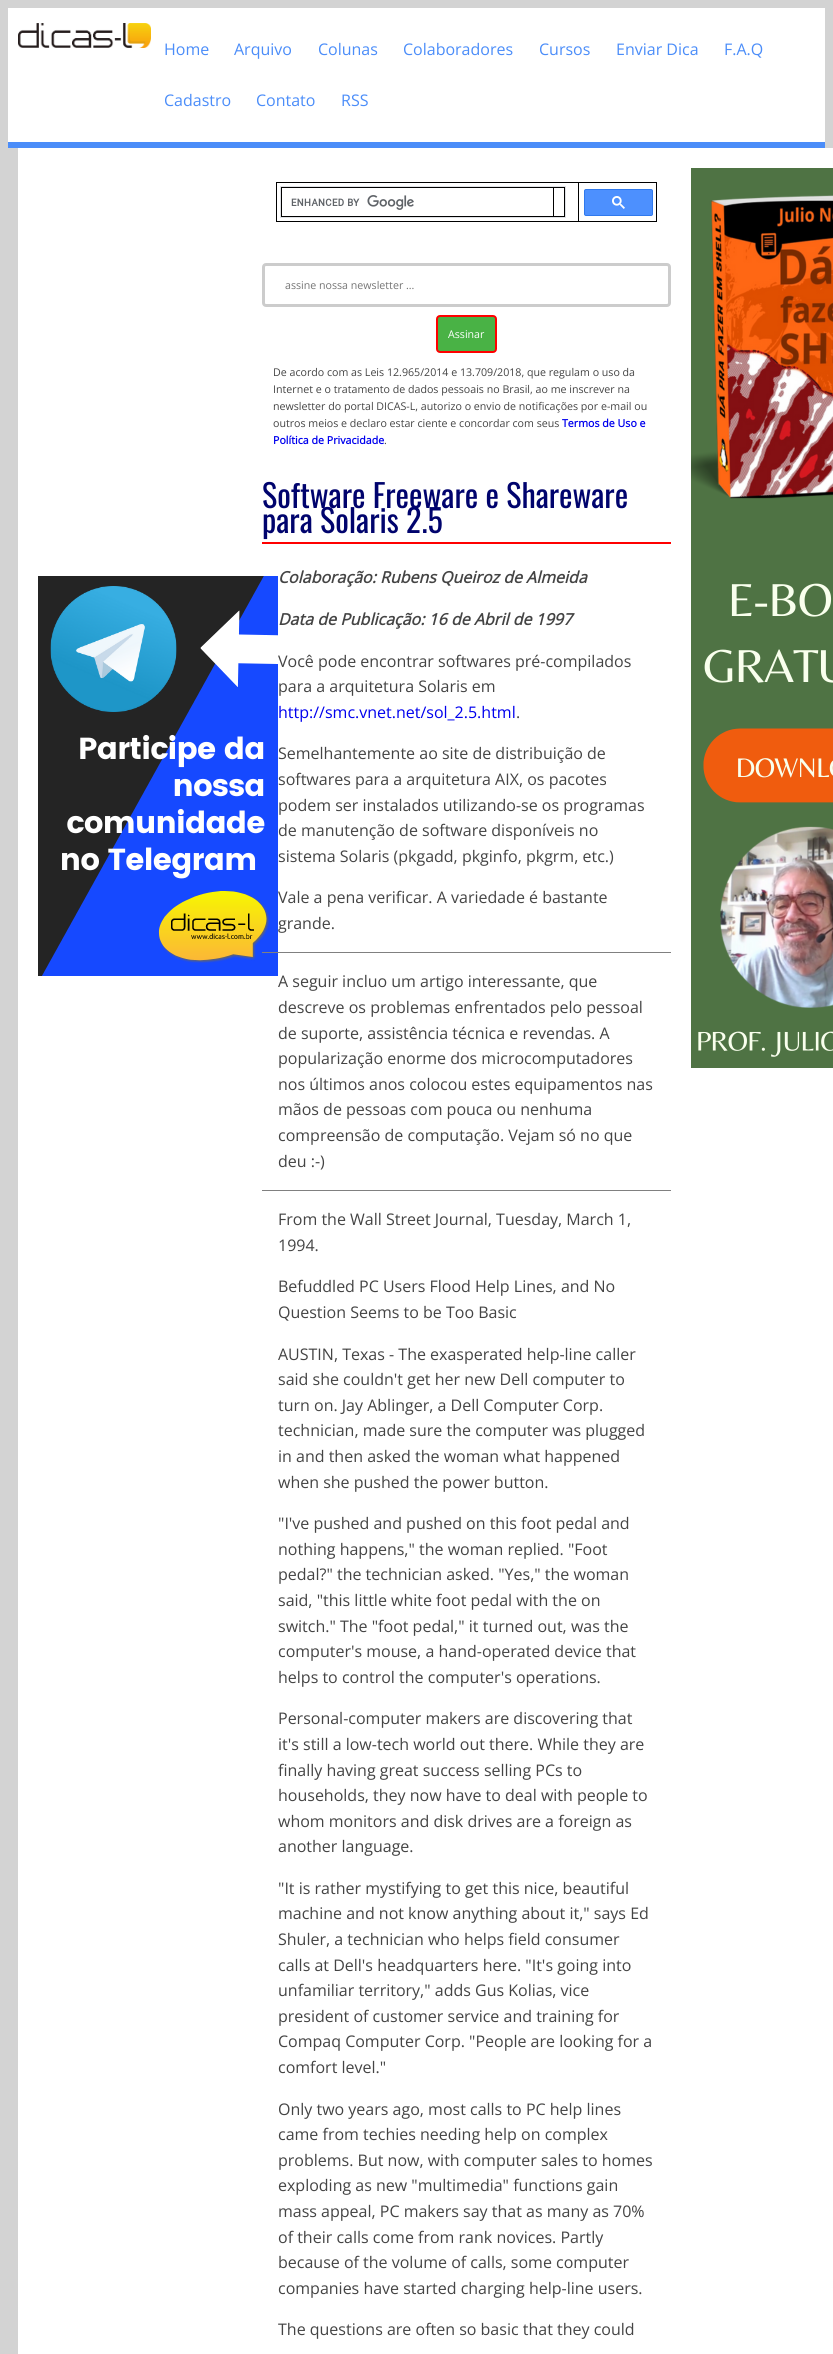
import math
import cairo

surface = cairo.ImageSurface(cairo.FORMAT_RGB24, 833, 2354)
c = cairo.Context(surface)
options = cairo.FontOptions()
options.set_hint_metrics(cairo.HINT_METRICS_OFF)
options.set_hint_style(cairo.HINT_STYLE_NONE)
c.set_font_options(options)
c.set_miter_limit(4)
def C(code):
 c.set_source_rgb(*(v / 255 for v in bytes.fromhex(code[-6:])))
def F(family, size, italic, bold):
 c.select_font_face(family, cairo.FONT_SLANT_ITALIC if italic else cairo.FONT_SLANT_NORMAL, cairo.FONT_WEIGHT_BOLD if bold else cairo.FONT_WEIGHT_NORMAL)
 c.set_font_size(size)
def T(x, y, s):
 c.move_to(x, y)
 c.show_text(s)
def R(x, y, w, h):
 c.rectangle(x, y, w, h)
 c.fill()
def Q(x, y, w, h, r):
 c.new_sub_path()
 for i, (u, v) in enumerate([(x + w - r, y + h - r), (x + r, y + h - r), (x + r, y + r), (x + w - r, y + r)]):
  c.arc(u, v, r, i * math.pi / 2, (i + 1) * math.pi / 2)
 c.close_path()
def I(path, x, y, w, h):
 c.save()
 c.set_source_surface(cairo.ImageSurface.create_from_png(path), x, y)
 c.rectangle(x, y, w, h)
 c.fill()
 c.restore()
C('d3d3d3')
c.paint()
C('4b8df9')
R(8,142,817,6)
C('ffffff')
R(8,8,817,134)
I('1.png',18,23,133,25)
F('Open Sans',16,0,0)
C('4b8df9')
T(164,55,'Home')
T(234,55,'Arquivo')
T(318,55,'Colunas')
T(403,55,'Colaboradores')
T(539,55,'Cursos')
T(616,55,'Enviar Dica')
T(724,55,'F.A.Q')
T(164,106,'Cadastro')
T(256,106,'Contato')
T(341,106,'RSS')
C('ffffff')
R(18,148,815,2206)
I('2.png',38,576,240,400)
C('000000')
R(276,182,381,1)
R(656,182,1,40)
R(276,221,381,1)
R(276,182,1,40)
c.rectangle(280.5,186.5,285,31)
C('dfe1e5')
c.set_line_width(1)
c.stroke()
C('000000')
R(281,187,284,1)
R(564,187,1,30)
R(281,216,284,1)
R(281,187,1,30)
I('3.png',291,195,123,15)
R(553,187,1,30)
R(578,182,1,40)
C('4d90fe')
Q(584.5,189.5,68,26,1.5)
c.fill_preserve()
C('3079ed')
c.stroke()
I('4.png',612,196,13,13)
Q(263.5,264.5,406,41,2.5)
C('cccccc')
c.set_line_width(3)
c.stroke()
F('Open Sans',10.65,0,0)
C('757575')
T(285,289,'assine nossa newsletter ...')
C('49b245')
Q(437,316,59,36,3)
c.fill_preserve()
C('ff0000')
c.set_line_width(2)
c.stroke()
C('ffffff')
T(448,338,'Assinar')
C('444444')
T(273,376,'De acordo com as Leis 12.965/2014 e 13.709/2018, que regulam o uso da')
T(273,393,'Internet e o tratamento de dados pessoais no Brasil, ao me inscrever na')
T(273,410,'newsletter do portal DICAS-L, autorizo o envio de notificações por e-mail ou')
T(273,427,'outros meios e declaro estar ciente e concordar com seus')
F('Open Sans',10.65,0,1)
C('0000ee')
T(562,427,'Termos de Uso e')
T(273,444,'Política de Privacidade')
F('Open Sans',10.65,0,0)
C('444444')
T(384,444,'.')
C('ff0000')
R(262,542,409,2)
F('Oswald',32,0,0)
C('00036d')
T(262,508,'Software Freeware e Shareware')
T(262,533,'para Solaris 2.5')
F('Open Sans',16,1,1)
C('444444')
T(278,583,'Colaboração: Rubens Queiroz de Almeida')
T(278,625,'Data de Publicação: 16 de Abril de 1997')
F('Open Sans',16,0,0)
T(278,667,'Você pode encontrar softwares pré-compilados')
T(278,692,'para a arquitetura Solaris em')
C('0000ee')
T(278,718,'http://smc.vnet.net/sol_2.5.html')
C('444444')
T(516,718,'.')
T(278,759,'Semelhantemente ao site de distribuição de')
T(278,785,'softwares para a arquitetura AIX, os pacotes')
T(278,811,'podem ser instalados utilizando-se os programas')
T(278,836,'de manutenção de software disponíveis no')
T(278,862,'sistema Solaris (pkgadd, pkginfo, pkgrm, etc.)')
T(278,903,'Vale a pena verificar. A variedade é bastante')
T(278,929,'grande.')
C('808080')
R(262,952,409,1)
C('444444')
T(278,987,'A seguir incluo um artigo interessante, que')
T(278,1013,'descreve os problemas enfrentados pelo pessoal')
T(278,1039,'de suporte, assistência técnica e revendas. A')
T(278,1064,'popularização enorme dos microcomputadores')
T(278,1090,'nos últimos anos colocou estes equipamentos nas')
T(278,1115,'mãos de pessoas com pouca ou nenhuma')
T(278,1141,'compreensão de computação. Vejam só no que')
T(278,1167,'deu :-)')
C('808080')
R(262,1190,409,1)
C('444444')
T(278,1225,'From the Wall Street Journal, Tuesday, March 1,')
T(278,1251,'1994.')
T(278,1292,'Befuddled PC Users Flood Help Lines, and No')
T(278,1318,'Question Seems to be Too Basic')
T(278,1360,'AUSTIN, Texas - The exasperated help-line caller')
T(278,1385,'said she couldn\'t get her new Dell computer to')
T(278,1411,'turn on. Jay Ablinger, a Dell Computer Corp.')
T(278,1436,'technician, made sure the computer was plugged')
T(278,1462,'in and then asked the woman what happened')
T(278,1488,'when she pushed the power button.')
T(278,1529,'"I\'ve pushed and pushed on this foot pedal and')
T(278,1555,'nothing happens," the woman replied. "Foot')
T(278,1580,'pedal?" the technician asked. "Yes," the woman')
T(278,1606,'said, "this little white foot pedal with the on')
T(278,1632,'switch." The "foot pedal," it turned out, was the')
T(278,1657,'computer\'s mouse, a hand-operated device that')
T(278,1683,'helps to control the computer\'s operations.')
T(278,1724,'Personal-computer makers are discovering that')
T(278,1750,'it\'s still a low-tech world out there. While they are')
T(278,1776,'finally having great success selling PCs to')
T(278,1801,'households, they now have to deal with people to')
T(278,1827,'whom monitors and disk drives are a foreign as')
T(278,1852,'another language.')
T(278,1894,'"It is rather mystifying to get this nice, beautiful')
T(278,1919,'machine and not know anything about it," says Ed')
T(278,1945,'Shuler, a technician who helps field consumer')
T(278,1971,'calls at Dell\'s headquarters here. "It\'s going into')
T(278,1996,'unfamiliar territory," adds Gus Kolias, vice')
T(278,2022,'president of customer service and training for')
T(278,2047,'Compaq Computer Corp. "People are looking for a')
T(278,2073,'comfort level."')
T(278,2115,'Only two years ago, most calls to PC help lines')
T(278,2140,'came from techies needing help on complex')
T(278,2166,'problems. But now, with computer sales to homes')
T(278,2191,'exploding as new "multimedia" functions gain')
T(278,2217,'mass appeal, PC makers say that as many as 70%')
T(278,2243,'of their calls come from rank novices. Partly')
T(278,2268,'because of the volume of calls, some computer')
T(278,2294,'companies have started charging help-line users.')
T(278,2335,'The questions are often so basic that they could')
I('5.png',691,168,142,900)
surface.write_to_png('o.png')
